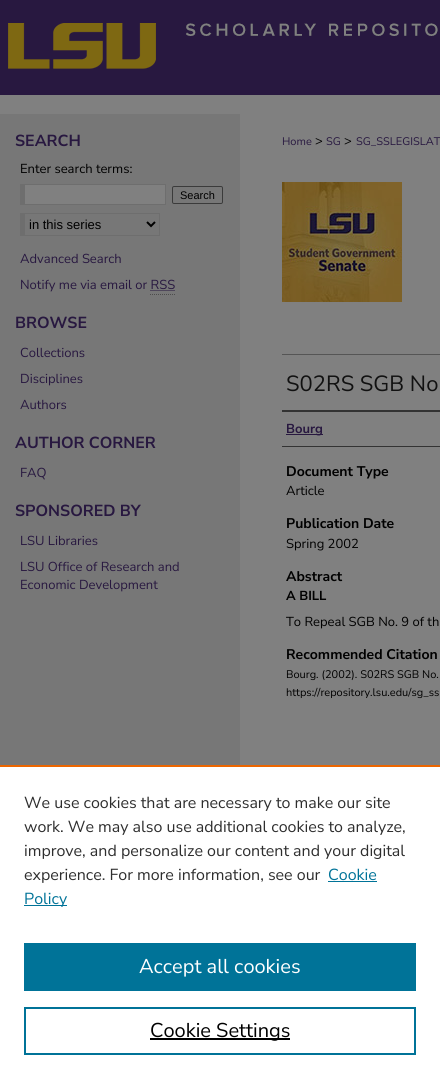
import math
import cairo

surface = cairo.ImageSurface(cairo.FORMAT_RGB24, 440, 1079)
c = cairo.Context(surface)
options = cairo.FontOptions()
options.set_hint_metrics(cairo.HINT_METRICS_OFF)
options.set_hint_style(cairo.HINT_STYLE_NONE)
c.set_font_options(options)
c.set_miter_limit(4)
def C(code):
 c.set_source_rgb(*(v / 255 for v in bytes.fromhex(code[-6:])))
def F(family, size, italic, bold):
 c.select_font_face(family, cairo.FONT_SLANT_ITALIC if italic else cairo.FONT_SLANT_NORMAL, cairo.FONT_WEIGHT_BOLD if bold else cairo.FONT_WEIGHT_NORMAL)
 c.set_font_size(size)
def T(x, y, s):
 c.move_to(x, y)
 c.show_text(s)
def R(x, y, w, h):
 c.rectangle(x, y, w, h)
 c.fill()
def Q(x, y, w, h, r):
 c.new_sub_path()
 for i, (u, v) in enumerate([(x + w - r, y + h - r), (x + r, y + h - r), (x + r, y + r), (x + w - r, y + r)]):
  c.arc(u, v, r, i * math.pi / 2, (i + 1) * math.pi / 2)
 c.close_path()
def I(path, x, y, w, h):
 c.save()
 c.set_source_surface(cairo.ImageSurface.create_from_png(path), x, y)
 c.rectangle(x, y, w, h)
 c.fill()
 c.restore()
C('808080')
c.paint()
C('281840')
R(0,0,440,95)
I('1.png',8,23,430,46)
C('777777')
R(0,114,240,651)
F('Nunito Sans',16,0,1)
C('281840')
T(15,146,'SEARCH')
F('Nunito Sans',13,0,0)
C('000000')
T(20,173,'Enter search terms:')
C('808080')
R(25,185,140,19)
C('6e6e6e')
R(20,184,146,1)
R(165,184,1,21)
R(20,204,146,1)
R(20,184,5,21)
Q(172.5,186.5,50,17,1.5)
C('3b3b3b')
c.set_line_width(1)
c.stroke()
F('Liberation Sans',11,0,0)
C('000000')
T(180,199,'Search')
C('6e6e6e')
R(20,213,140,1)
R(159,213,1,23)
R(20,235,140,1)
R(20,213,5,23)
c.new_path()
c.move_to(147,222)
c.line_to(151,226)
c.line_to(155,222)
C('000000')
c.set_line_width(2)
c.stroke()
F('Liberation Sans',13,0,0)
T(29,229,'in this series')
F('Nunito Sans',13,0,0)
C('281840')
T(20,263,'Advanced Search')
T(20,289,'Notify me via email or RSS')
c.new_path()
c.move_to(150.5,290.5)
c.line_to(175,290.5)
c.set_line_width(1)
c.set_dash([1,1])
c.stroke()
c.new_path()
c.move_to(150,294.5)
c.line_to(175,294.5)
C('4d4d4d')
c.stroke()
F('Nunito Sans',16,0,1)
C('281840')
T(15,328,'BROWSE')
F('Nunito Sans',13,0,0)
T(20,357,'Collections')
T(20,383,'Disciplines')
T(20,409,'Authors')
F('Nunito Sans',16,0,1)
T(15,448,'AUTHOR CORNER')
F('Nunito Sans',13,0,0)
T(20,477,'FAQ')
F('Nunito Sans',16,0,1)
T(15,516,'SPONSORED BY')
F('Nunito Sans',13,0,0)
T(20,545,'LSU Libraries')
T(20,571,'LSU Office of Research and')
T(20,589,'Economic Development')
F('Nunito Sans',11,0,0)
T(282,145,'Home')
F('Nunito Sans',13,0,0)
C('000000')
T(315,145,'>')
F('Nunito Sans',11,0,0)
C('281840')
T(326,145,'SG')
F('Nunito Sans',13,0,0)
C('000000')
T(344,145,'>')
F('Nunito Sans',11,0,0)
C('281840')
T(356,145,'SG_SSLEGISLAT')
I('2.png',282,182,120,120)
C('555555')
R(282,354,158,1)
F('Nunito Sans',22,0,0)
C('111111')
T(286,391,'S02RS SGB No')
C('333333')
R(282,410,158,2)
R(282,446,158,1)
C('281840')
R(286,434,37,1)
F('Nunito Sans',13,0,1)
T(286,433,'Bourg')
F('Nunito Sans',14,0,1)
C('000000')
T(286,476,'Document Type')
F('Nunito Sans',13,0,0)
T(286,495,'Article')
F('Nunito Sans',14,0,1)
T(286,528,'Publication Date')
F('Nunito Sans',13,0,0)
T(286,548,'Spring 2002')
F('Nunito Sans',14,0,1)
T(286,581,'Abstract')
F('Nunito Sans',13,0,1)
T(286,600,'A BILL')
F('Nunito Sans',13,0,0)
T(286,626,'To Repeal SGB No. 9 of th')
F('Nunito Sans',14,0,1)
T(286,659,'Recommended Citation')
F('Nunito Sans',11,0,0)
T(286,678,'Bourg. (2002). S02RS SGB No.')
T(286,696,'https://repository.lsu.edu/sg_ss')
C('ffffff')
R(0,767,440,312)
C('eb6500')
R(0,765,440,2)
F('Nunito Sans',16,0,0)
C('2e2e2e')
T(24,808,'We use cookies that are necessary to make our site')
T(24,832,'work. We may also use additional cookies to analyze,')
T(24,856,'improve, and personalize our content and your digital')
T(24,880,'experience. For more information, see our')
C('007398')
T(328,880,'Cookie')
R(328,881,49,1)
R(24,905,43,1)
T(24,904,'Policy')
R(24,943,392,48)
F('Nunito Sans',20,0,0)
C('ffffff')
T(139,973,'Accept all cookies')
c.rectangle(25,1008,390,46)
C('007398')
c.set_line_width(2)
c.set_dash([])
c.stroke()
C('000000')
R(150,1038,140,2)
T(150,1037,'Cookie Settings')
surface.write_to_png('o.png')
